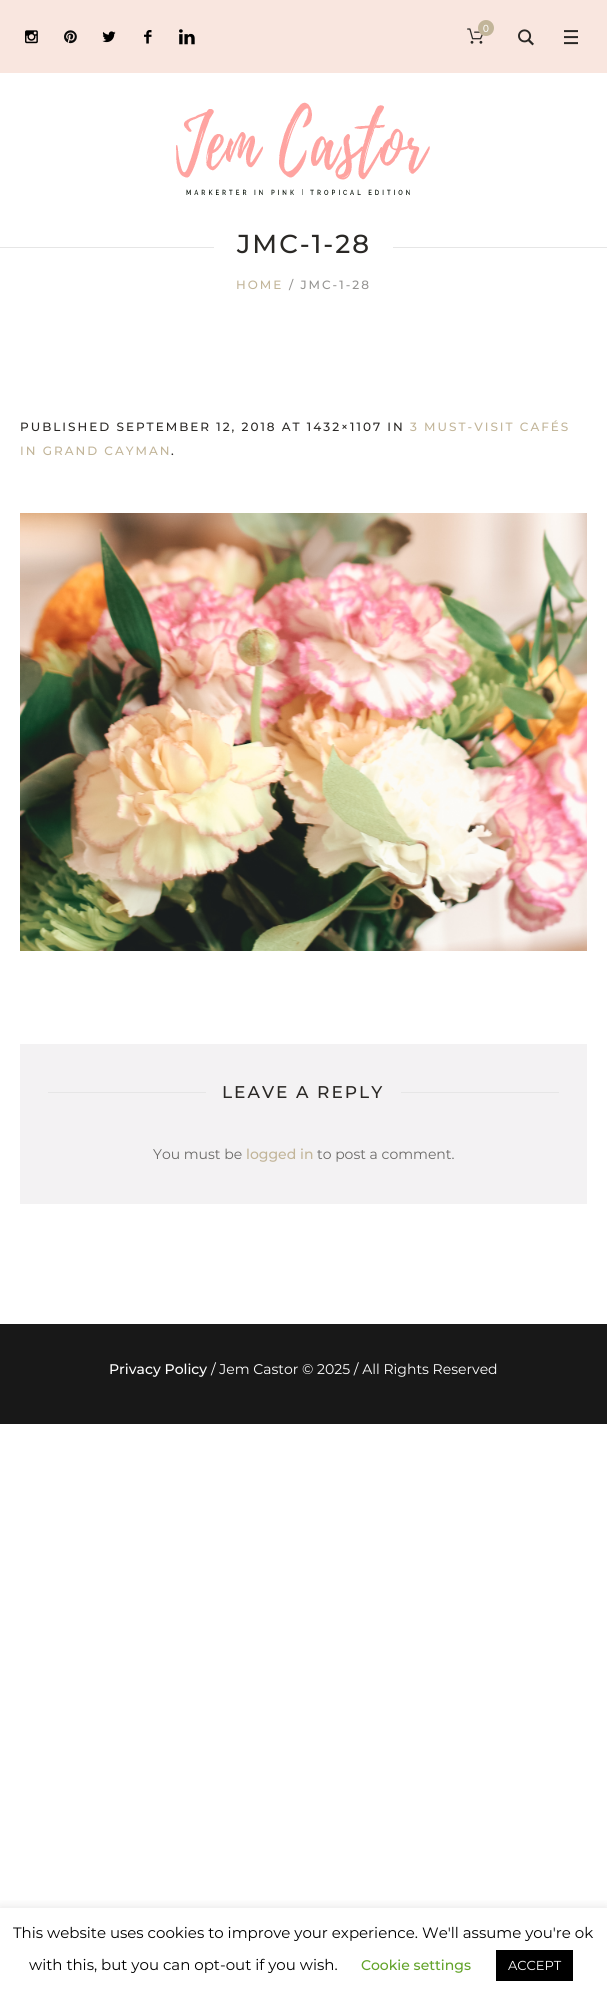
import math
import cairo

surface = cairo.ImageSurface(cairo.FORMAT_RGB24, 607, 1998)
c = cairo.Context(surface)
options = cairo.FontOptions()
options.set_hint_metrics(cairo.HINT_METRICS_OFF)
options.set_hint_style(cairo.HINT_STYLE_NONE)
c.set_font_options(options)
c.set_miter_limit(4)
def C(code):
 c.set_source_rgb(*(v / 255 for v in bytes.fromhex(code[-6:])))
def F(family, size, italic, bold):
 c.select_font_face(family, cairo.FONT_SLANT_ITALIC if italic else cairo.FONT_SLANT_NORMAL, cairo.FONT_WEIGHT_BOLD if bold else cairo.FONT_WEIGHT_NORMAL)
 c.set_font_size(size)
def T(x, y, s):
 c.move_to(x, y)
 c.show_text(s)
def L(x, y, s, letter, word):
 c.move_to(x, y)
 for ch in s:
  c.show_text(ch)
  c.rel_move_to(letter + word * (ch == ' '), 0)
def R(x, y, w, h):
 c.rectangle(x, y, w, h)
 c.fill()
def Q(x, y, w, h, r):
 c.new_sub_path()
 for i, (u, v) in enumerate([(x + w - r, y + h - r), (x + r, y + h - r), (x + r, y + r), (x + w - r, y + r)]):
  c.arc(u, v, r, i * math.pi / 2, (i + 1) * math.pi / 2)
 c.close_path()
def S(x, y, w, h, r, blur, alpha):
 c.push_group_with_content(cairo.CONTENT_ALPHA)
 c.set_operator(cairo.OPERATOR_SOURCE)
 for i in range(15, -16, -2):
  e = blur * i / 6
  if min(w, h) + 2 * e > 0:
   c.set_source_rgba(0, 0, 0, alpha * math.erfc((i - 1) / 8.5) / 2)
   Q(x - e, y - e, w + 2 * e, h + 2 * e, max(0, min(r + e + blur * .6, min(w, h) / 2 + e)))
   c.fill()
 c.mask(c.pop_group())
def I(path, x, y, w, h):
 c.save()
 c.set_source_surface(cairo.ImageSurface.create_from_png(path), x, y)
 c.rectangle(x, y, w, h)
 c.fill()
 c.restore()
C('ffffff')
c.paint()
C('f9e6df')
R(0,0,607,73)
I('1.png',25,30,13,14)
I('2.png',64,30,13,14)
I('3.png',102,31,14,12)
I('4.png',144,30,8,14)
I('5.png',179,29,16,16)
I('6.png',467,28,16,16)
C('c2b599')
c.arc(486,28,8,0,2 * math.pi)
c.fill()
F('Lato',10,0,0)
C('ffffff')
T(483,32,'0')
I('7.png',518,29,16,17)
I('8.png',564,30,14,15)
I('9.png',176,102,254,93)
C('e6e6e6')
R(0,247,607,1)
C('ffffff')
R(214,247,179,1)
F('Montserrat Medium',26,0,0)
C('2a2825')
L(237,253,'JMC-1-28',2,0)
F('Montserrat Medium',12,0,0)
C('c2b599')
L(236,289,'HOME',2,0)
C('959492')
L(289,289,'/ JMC-1-28',2,0)
C('2a2825')
L(20,431,'PUBLISHED SEPTEMBER 12, 2018 AT 1432×1107 IN',2,0)
C('c2b599')
L(410,431,'3 MUST-VISIT CAFÉS',2,0)
L(20,455,'IN GRAND CAYMAN',2,0)
C('2a2825')
L(171,455,'.',2,0)
I('10.png',20,513,567,438)
C('f3f2f3')
R(20,1044,567,160)
C('e6e6e6')
R(48,1092,158,1)
F('Montserrat Medium',17,0,0)
C('2a2825')
L(222,1098,'LEAVE A REPLY',2,0)
C('e6e6e6')
R(401,1092,158,1)
F('Montserrat',14,0,0)
C('6a6967')
T(153,1159,'You must be')
F('Montserrat Medium',14,0,0)
C('c2b599')
T(246,1159,'logged in')
F('Montserrat',14,0,0)
C('6a6967')
T(317,1159,'to post a comment.')
C('181818')
R(0,1324,607,100)
F('Montserrat Medium',14,0,0)
C('ffffff')
T(109,1374,'Privacy Policy')
F('Montserrat',14,0,0)
T(211,1374,'/ Jem Castor © 2025 / All Rights Reserved')
c.save()
c.rectangle(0,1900,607,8)
c.clip()
C('acabab')
S(0,1907,607,90,0,5,.3)
c.restore()
F('Montserrat',15,0,0)
C('000000')
T(13,1938,'This website uses cookies to improve your experience. We\'ll assume you\'re ok')
T(29,1970,'with this, but you can opt-out if you wish.')
F('Montserrat Medium',14,0,0)
C('62a329')
T(361,1970,'Cookie settings')
C('000000')
R(496,1950,77,31)
F('Montserrat',13,0,0)
C('ffffff')
T(508,1970,'ACCEPT')
surface.write_to_png('o.png')
